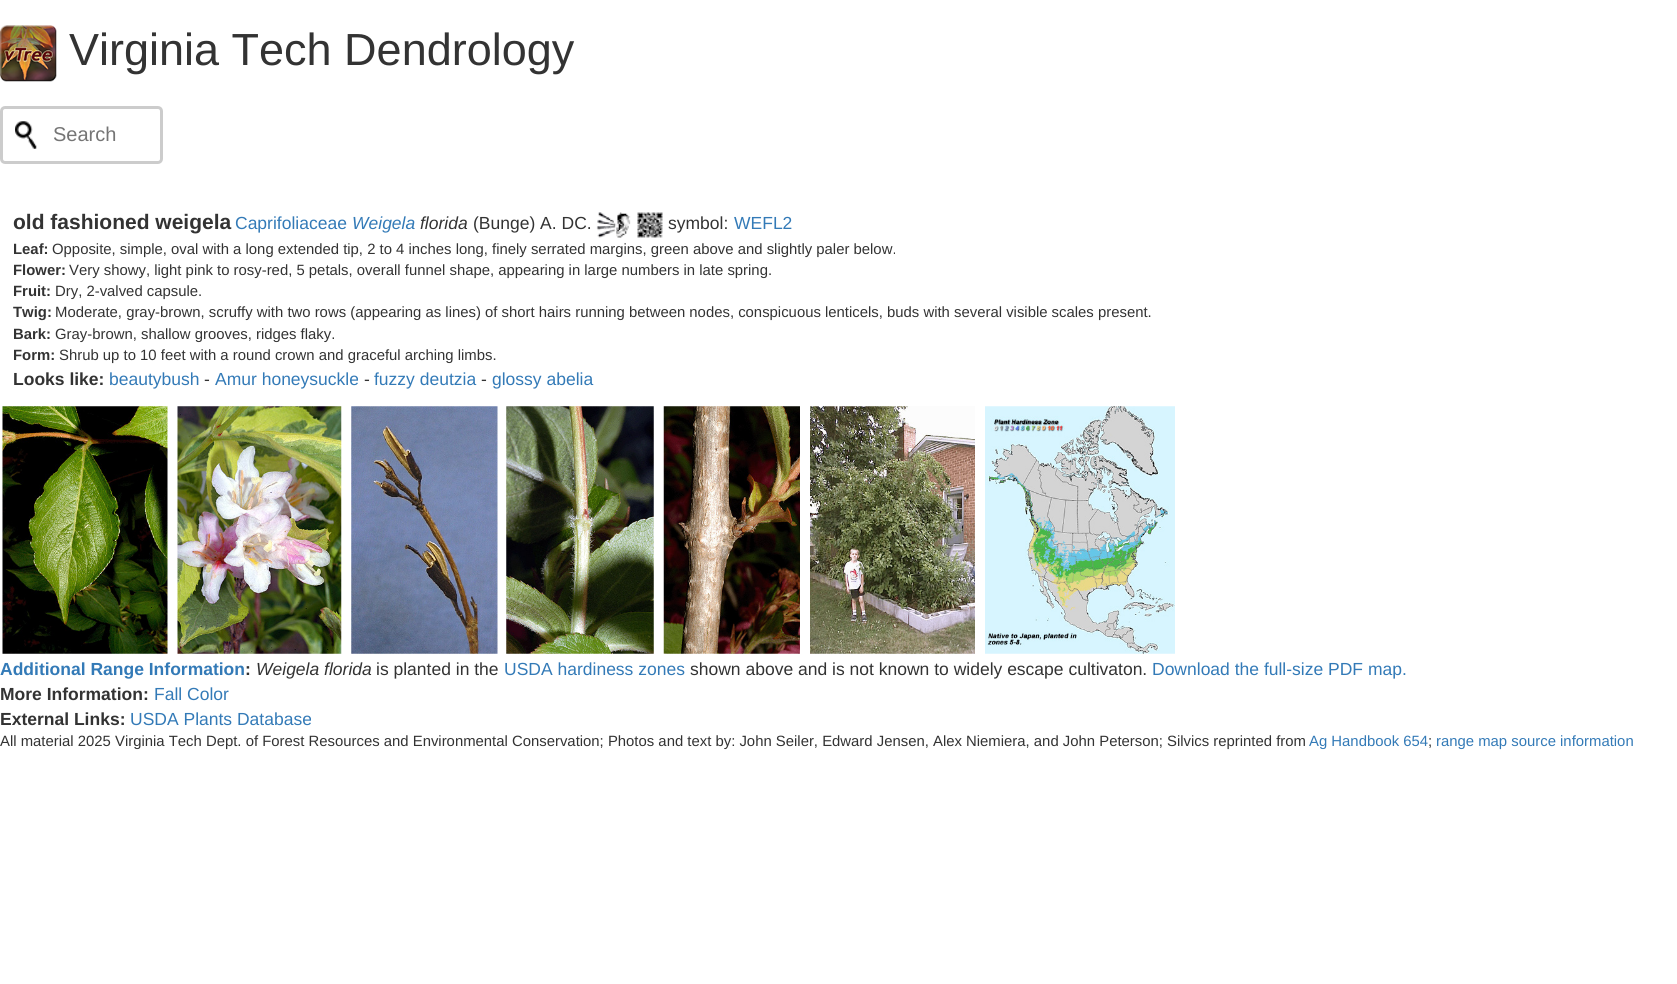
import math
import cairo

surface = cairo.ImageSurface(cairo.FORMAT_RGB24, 1677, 984)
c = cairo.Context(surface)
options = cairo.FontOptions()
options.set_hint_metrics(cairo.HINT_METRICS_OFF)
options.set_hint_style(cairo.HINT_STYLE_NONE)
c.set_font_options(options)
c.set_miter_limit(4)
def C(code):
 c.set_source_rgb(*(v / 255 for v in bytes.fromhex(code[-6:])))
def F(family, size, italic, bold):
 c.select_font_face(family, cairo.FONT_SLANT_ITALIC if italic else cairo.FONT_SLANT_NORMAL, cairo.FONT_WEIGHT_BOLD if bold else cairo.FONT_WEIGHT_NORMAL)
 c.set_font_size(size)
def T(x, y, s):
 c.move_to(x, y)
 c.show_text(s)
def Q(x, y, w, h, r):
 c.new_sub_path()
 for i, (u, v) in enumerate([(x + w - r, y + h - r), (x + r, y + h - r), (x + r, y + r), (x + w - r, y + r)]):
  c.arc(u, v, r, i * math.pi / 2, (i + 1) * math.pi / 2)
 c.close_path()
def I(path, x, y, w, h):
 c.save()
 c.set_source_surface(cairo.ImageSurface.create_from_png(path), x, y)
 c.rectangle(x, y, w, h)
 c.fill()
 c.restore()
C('ffffff')
c.paint()
I('1.png',0,25,57,57)
F('Liberation Sans',45,0,0)
C('333333')
T(69,65,'Virginia Tech Dendrology')
I('2.png',15,121,22,28)
Q(1.5,107.5,160,55,3.5)
C('cccccc')
c.set_line_width(3)
c.stroke()
F('Liberation Sans',20,0,0)
C('757575')
T(53,141,'Search')
F('Liberation Sans',21,0,1)
C('333333')
T(13,229,'old fashioned weigela')
F('Liberation Sans',17.5,0,0)
C('337ab7')
T(235,229,'Caprifoliaceae')
F('Liberation Sans',17.5,1,0)
T(352,229,'Weigela')
C('333333')
T(420,229,'florida')
F('Liberation Sans',17.5,0,0)
T(473,229,'(Bunge) A. DC.')
I('3.png',596,212,35,26)
I('4.png',637,212,26,26)
T(668,229,'symbol:')
C('337ab7')
T(734,229,'WEFL2')
F('Liberation Sans',14.88,0,1)
C('333333')
T(13,254,'Leaf:')
F('Liberation Sans',14.88,0,0)
T(52,254,'Opposite, simple, oval with a long extended tip, 2 to 4 inches long, finely serrated margins, green above and slightly paler below.')
F('Liberation Sans',14.88,0,1)
T(13,275,'Flower:')
F('Liberation Sans',14.88,0,0)
T(69,275,'Very showy, light pink to rosy-red, 5 petals, overall funnel shape, appearing in large numbers in late spring.')
F('Liberation Sans',14.88,0,1)
T(13,296,'Fruit:')
F('Liberation Sans',14.88,0,0)
T(55,296,'Dry, 2-valved capsule.')
F('Liberation Sans',14.88,0,1)
T(13,317,'Twig:')
F('Liberation Sans',14.88,0,0)
T(55,317,'Moderate, gray-brown, scruffy with two rows (appearing as lines) of short hairs running between nodes, conspicuous lenticels, buds with several visible scales present.')
F('Liberation Sans',14.88,0,1)
T(13,339,'Bark:')
F('Liberation Sans',14.88,0,0)
T(55,339,'Gray-brown, shallow grooves, ridges flaky.')
F('Liberation Sans',14.88,0,1)
T(13,360,'Form:')
F('Liberation Sans',14.88,0,0)
T(59,360,'Shrub up to 10 feet with a round crown and graceful arching limbs.')
F('Liberation Sans',17.5,0,1)
T(13,385,'Looks like:')
F('Liberation Sans',17.5,0,0)
C('337ab7')
T(109,385,'beautybush')
C('333333')
T(204,385,'-')
C('337ab7')
T(215,385,'Amur honeysuckle')
C('333333')
T(364,385,'-')
C('337ab7')
T(374,385,'fuzzy deutzia')
C('333333')
T(481,385,'-')
C('337ab7')
T(492,385,'glossy abelia')
I('5.png',2,406,166,248)
I('6.png',177,406,165,248)
I('7.png',351,406,147,248)
I('8.png',506,406,148,248)
I('9.png',663,406,137,248)
I('10.png',810,406,165,248)
I('11.png',985,406,190,248)
F('Liberation Sans',17.5,0,1)
T(0,675,'Additional Range Information')
C('333333')
T(245,675,':')
F('Liberation Sans',17.5,1,0)
T(256,675,'Weigela florida')
F('Liberation Sans',17.5,0,0)
T(376,675,'is planted in the')
C('337ab7')
T(504,675,'USDA hardiness zones')
C('333333')
T(690,675,'shown above and is not known to widely escape cultivaton.')
C('337ab7')
T(1152,675,'Download the full-size PDF map.')
F('Liberation Sans',17.5,0,1)
C('333333')
T(0,700,'More Information:')
F('Liberation Sans',17.5,0,0)
C('337ab7')
T(154,700,'Fall Color')
F('Liberation Sans',17.5,0,1)
C('333333')
T(0,725,'External Links:')
F('Liberation Sans',17.5,0,0)
C('337ab7')
T(130,725,'USDA Plants Database')
F('Liberation Sans',14.88,0,0)
C('333333')
T(0,746,'All material 2025 Virginia Tech Dept. of Forest Resources and Environmental Conservation; Photos and text by: John Seiler, Edward Jensen, Alex Niemiera, and John Peterson; Silvics reprinted from')
C('337ab7')
T(1309,746,'Ag Handbook 654')
C('333333')
T(1428,746,';')
C('337ab7')
T(1436,746,'range map source information')
surface.write_to_png('o.png')
